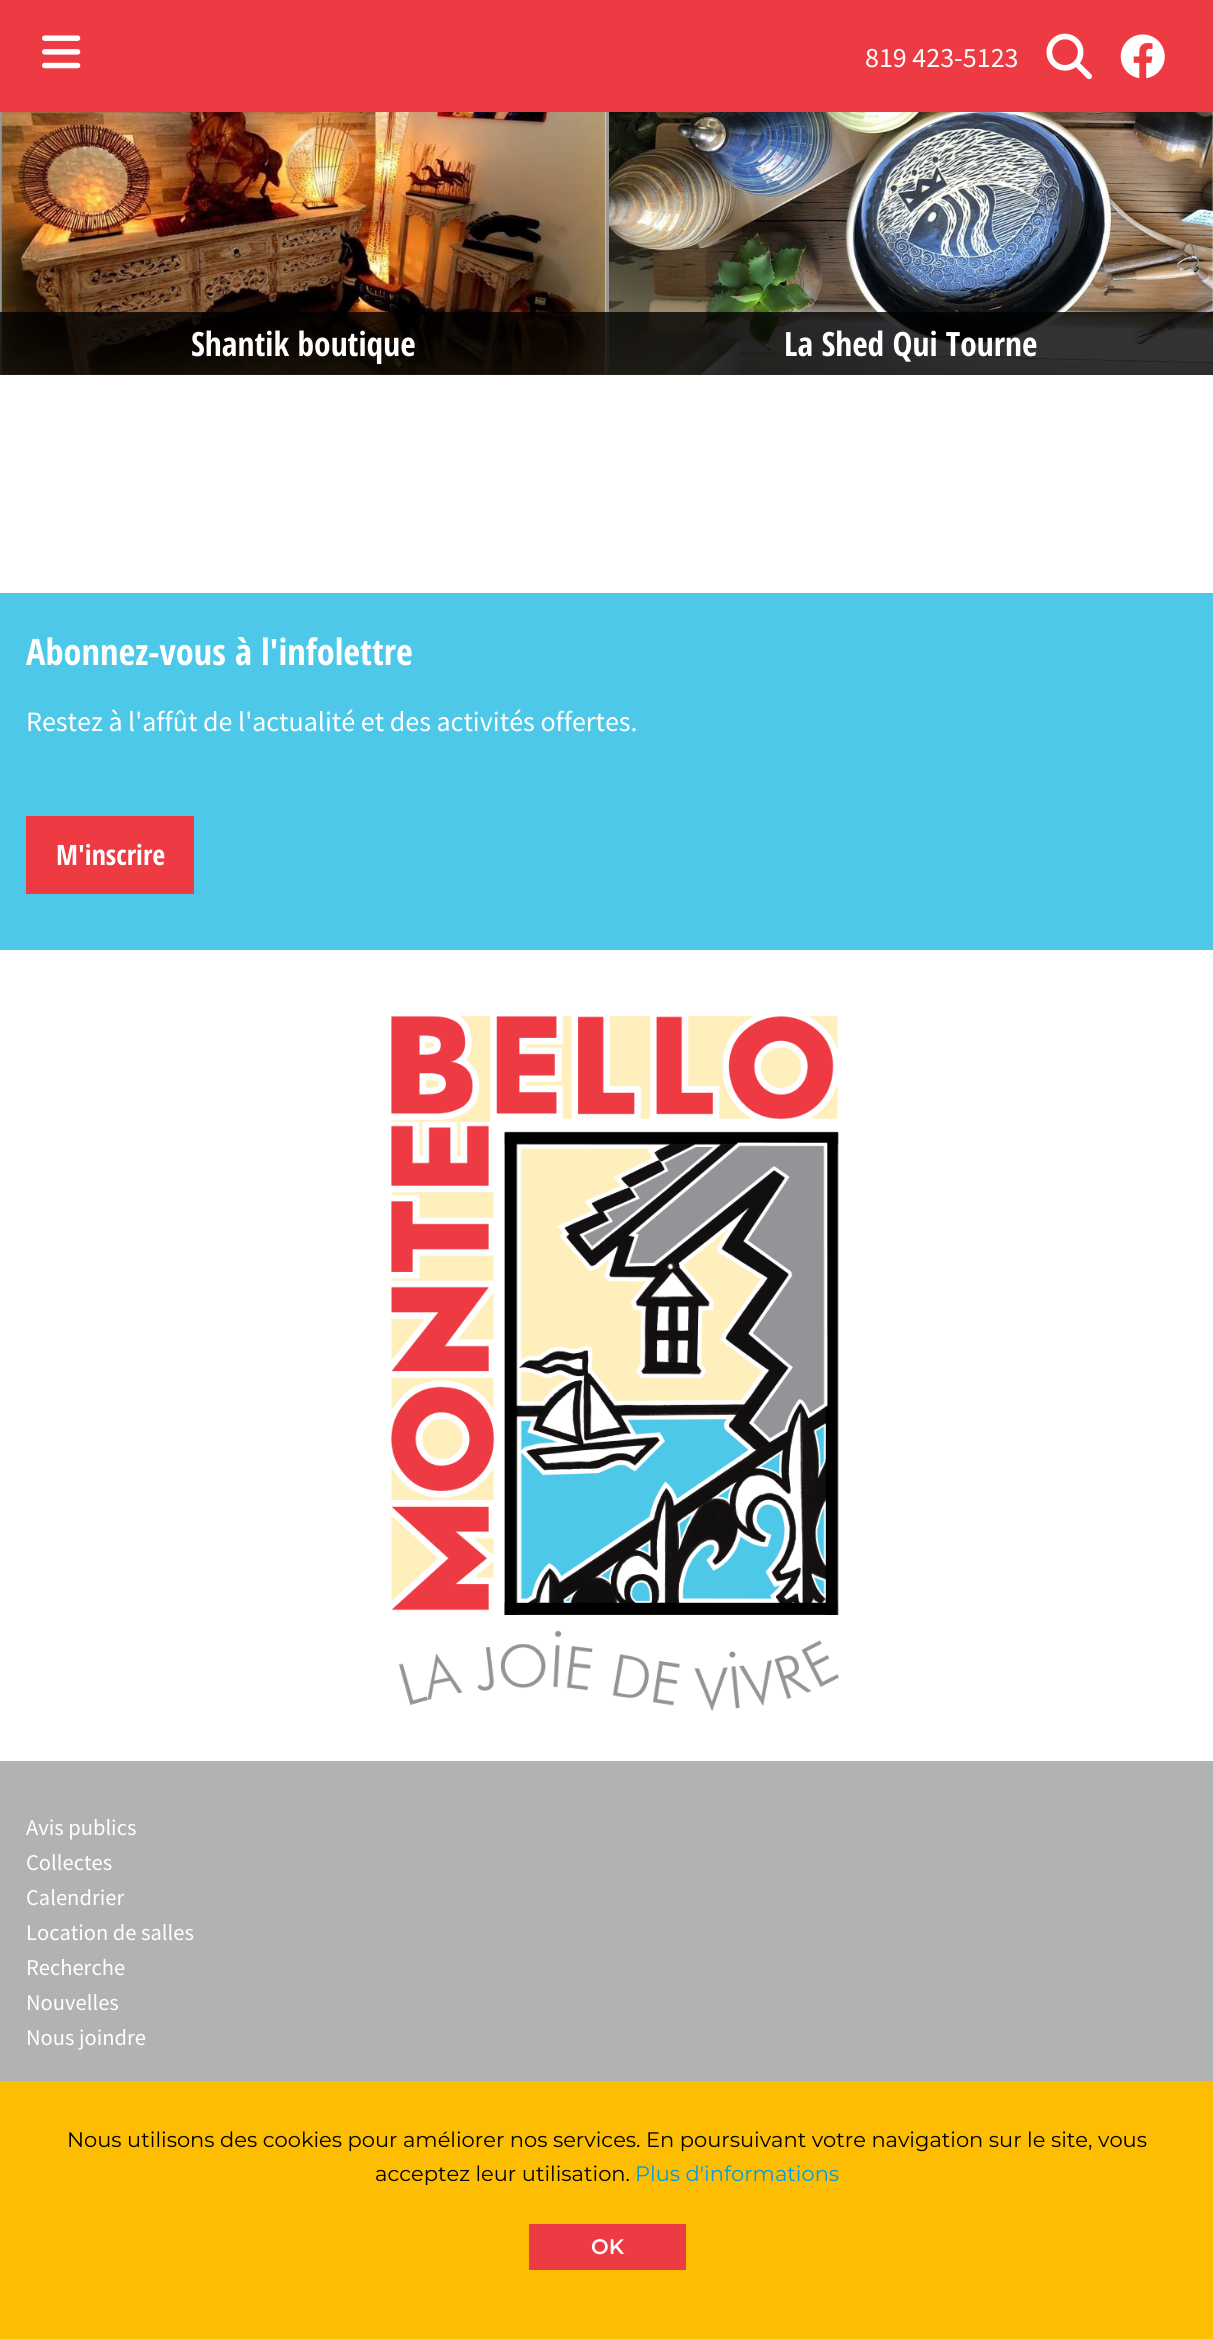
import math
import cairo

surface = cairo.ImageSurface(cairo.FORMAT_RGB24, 1213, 2339)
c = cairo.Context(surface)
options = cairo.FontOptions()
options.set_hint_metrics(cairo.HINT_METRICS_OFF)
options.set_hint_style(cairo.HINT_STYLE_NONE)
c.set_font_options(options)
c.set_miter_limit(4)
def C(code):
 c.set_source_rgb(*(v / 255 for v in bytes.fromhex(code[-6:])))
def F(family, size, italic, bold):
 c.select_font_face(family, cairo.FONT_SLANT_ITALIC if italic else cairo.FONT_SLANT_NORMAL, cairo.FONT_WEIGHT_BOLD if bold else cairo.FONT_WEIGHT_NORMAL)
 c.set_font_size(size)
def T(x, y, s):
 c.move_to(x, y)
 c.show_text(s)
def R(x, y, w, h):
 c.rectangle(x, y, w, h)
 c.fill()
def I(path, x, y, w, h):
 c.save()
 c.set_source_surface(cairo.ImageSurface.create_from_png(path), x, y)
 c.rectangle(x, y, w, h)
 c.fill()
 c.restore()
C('ffffff')
c.paint()
C('ee3a43')
R(0,0,1213,112)
I('1.png',42,35,39,34)
F('Source Sans Pro',28,0,0)
C('ffffff')
T(865,67,'819 423-5123')
I('2.png',1046,33,46,47)
I('3.png',1120,34,45,45)
C('999999')
R(606,112,3,263)
R(0,112,2,263)
I('4.png',1,112,605,263)
c.set_source_rgba(0,0,0,0.8)
R(0,312,607,63)
F('Open Sans Condensed',33.5,0,1)
C('ffffff')
T(191,356,'Shantik boutique')
I('5.png',609,112,604,263)
c.set_source_rgba(0,0,0,0.8)
R(607,312,606,63)
C('ffffff')
T(784,356,'La Shed Qui Tourne')
C('b0b2b4')
R(0,1761,1213,320)
C('4dc8e9')
R(0,593,1213,357)
F('Open Sans Condensed',36.4,0,1)
C('ffffff')
T(26,665,'Abonnez-vous à l\'infolettre')
F('Source Sans Pro',28,0,0)
T(26,731,'Restez à l\'affût de l\'actualité et des activités offertes.')
C('ee3a43')
R(26,816,168,78)
F('Open Sans Condensed',28,0,1)
C('ffffff')
T(56,865,'M\'inscrire')
I('6.png',391,1015,448,696)
F('Source Sans Pro',22.5,0,0)
T(26,1835,'Avis publics')
T(26,1870,'Collectes')
T(26,1905,'Calendrier')
T(26,1940,'Location de salles')
T(26,1975,'Recherche')
T(26,2010,'Nouvelles')
T(26,2045,'Nous joindre')
C('fdbd00')
R(0,2081,1213,258)
F('Montserrat',21,0,0)
C('000000')
T(67,2147,'Nous utilisons des cookies pour améliorer nos services. En poursuivant votre navigation sur le site, vous')
T(375,2181,'acceptez leur utilisation.')
C('009be5')
T(635,2181,'Plus d\'informations')
C('ee3a43')
R(529,2224,157,46)
F('Montserrat SemiBold',21,0,0)
C('ffffff')
T(591,2254,'OK')
surface.write_to_png('o.png')
